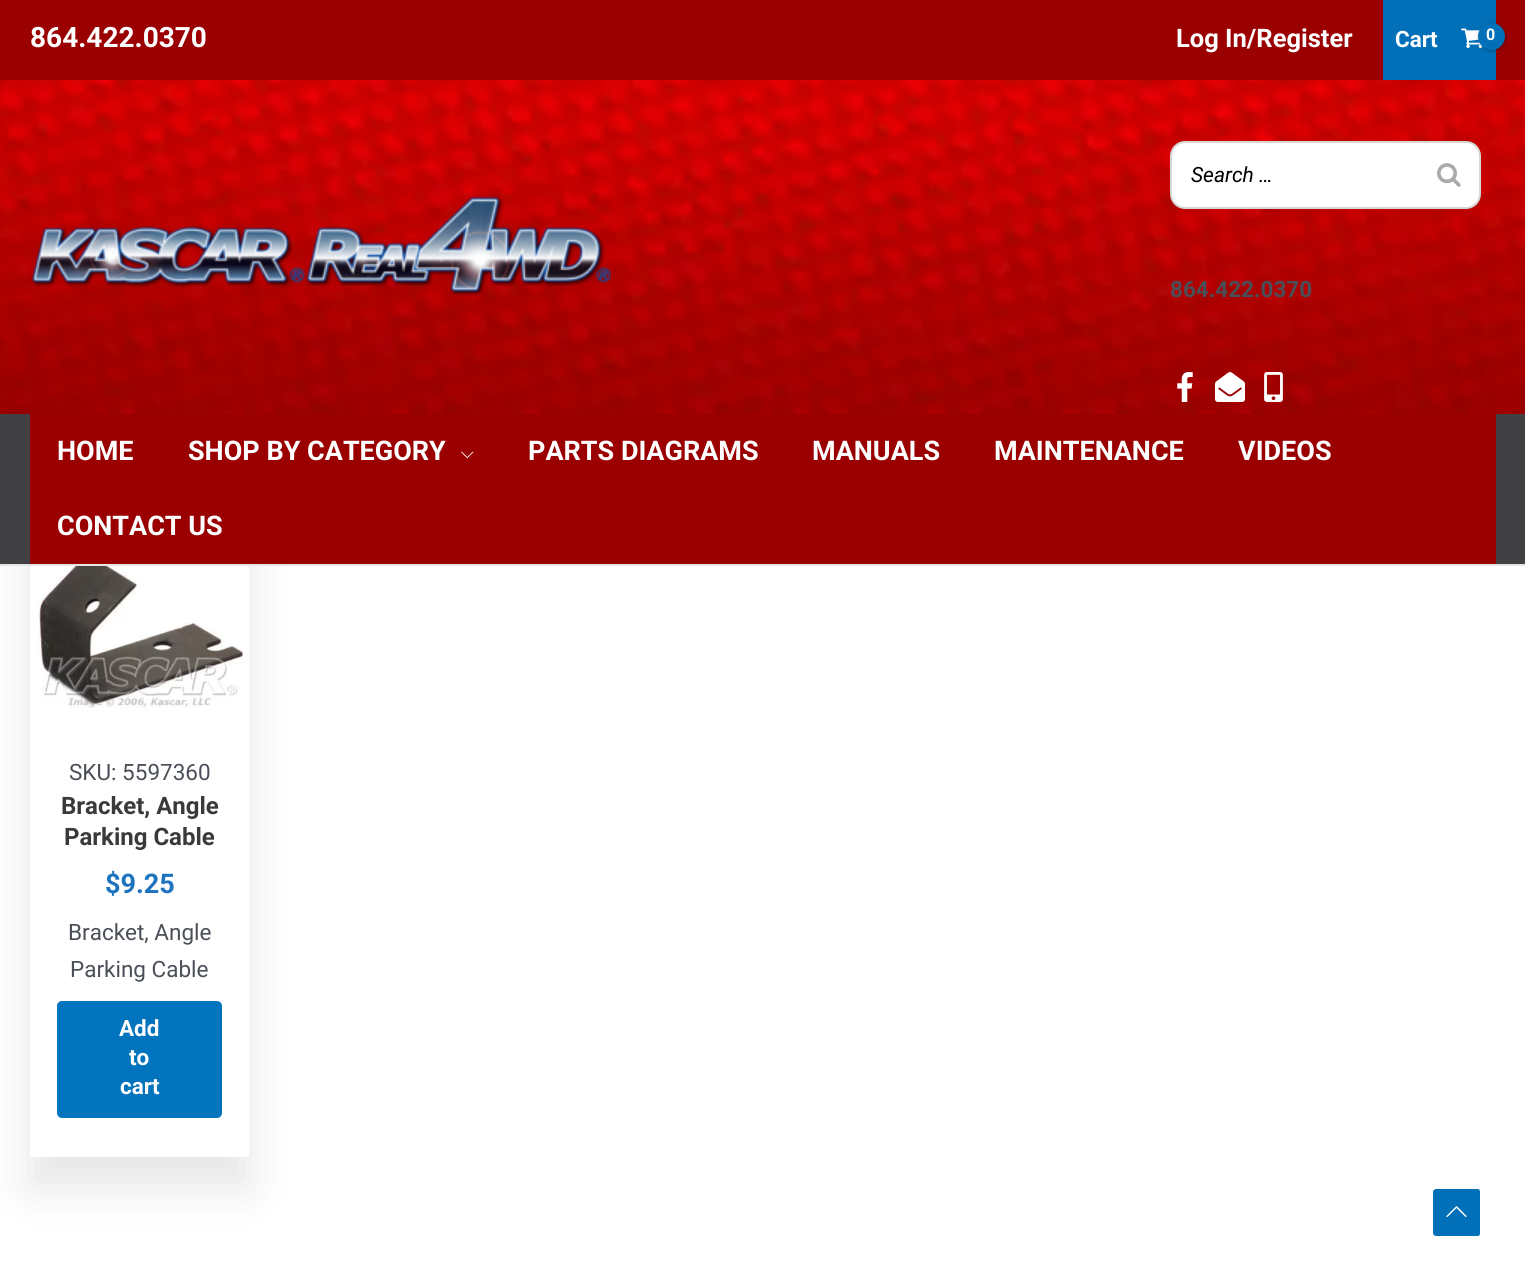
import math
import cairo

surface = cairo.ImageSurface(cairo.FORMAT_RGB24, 1525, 1281)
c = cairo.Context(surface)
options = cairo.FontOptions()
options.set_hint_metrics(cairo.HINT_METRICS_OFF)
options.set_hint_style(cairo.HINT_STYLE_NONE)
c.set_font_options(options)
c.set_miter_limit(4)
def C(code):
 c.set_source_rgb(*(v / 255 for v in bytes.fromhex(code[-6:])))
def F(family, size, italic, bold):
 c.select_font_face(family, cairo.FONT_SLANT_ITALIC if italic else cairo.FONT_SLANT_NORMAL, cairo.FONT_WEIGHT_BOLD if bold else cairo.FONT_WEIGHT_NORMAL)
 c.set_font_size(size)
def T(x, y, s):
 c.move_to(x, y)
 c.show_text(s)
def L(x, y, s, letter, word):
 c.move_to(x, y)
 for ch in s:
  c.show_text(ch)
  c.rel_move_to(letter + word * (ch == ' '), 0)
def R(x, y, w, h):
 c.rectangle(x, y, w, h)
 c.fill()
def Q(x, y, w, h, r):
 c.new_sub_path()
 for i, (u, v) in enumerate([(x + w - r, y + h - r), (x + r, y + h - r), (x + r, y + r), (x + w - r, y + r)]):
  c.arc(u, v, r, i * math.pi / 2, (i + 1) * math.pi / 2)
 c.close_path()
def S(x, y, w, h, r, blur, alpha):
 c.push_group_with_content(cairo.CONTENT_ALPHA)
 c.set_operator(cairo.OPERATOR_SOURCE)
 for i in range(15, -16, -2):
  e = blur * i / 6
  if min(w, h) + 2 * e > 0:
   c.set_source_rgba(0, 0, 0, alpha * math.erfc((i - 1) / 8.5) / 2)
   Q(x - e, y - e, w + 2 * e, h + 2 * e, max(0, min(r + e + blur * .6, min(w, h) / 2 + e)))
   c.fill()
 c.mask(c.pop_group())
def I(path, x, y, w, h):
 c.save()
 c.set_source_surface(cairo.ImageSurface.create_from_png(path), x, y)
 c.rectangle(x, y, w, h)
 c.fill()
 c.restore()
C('ffffff')
c.paint()
C('9b0000')
R(0,0,1525,80)
F('Roboto',28,0,1)
C('ffffff')
T(30,47,'864.422.0370')
F('Roboto',25.5,0,1)
T(1176,47,'Log In/Register')
C('0170b9')
R(1383,0,113,80)
F('Roboto',22.5,0,1)
C('ffffff')
T(1395,47,'Cart')
I('1.png',1461,28,22,20)
C('000000')
S(1479,24,27,27,13.5,2,.3)
C('0170b9')
c.arc(1491.5,36.5,13.5,0,2 * math.pi)
c.fill()
F('Roboto',16,0,1)
C('ffffff')
L(1486,40,'0',-1,0)
I('2.png',0,80,1525,334)
I('3.png',31,195,580,102)
Q(1171,142,309,66,14)
c.fill_preserve()
C('d6d6d6')
c.stroke()
F('Roboto',21,1,0)
C('000000')
T(1191,182,'Search …')
I('4.png',1437,163,24,24)
F('Roboto',22.5,0,1)
C('4b4f58')
T(1170,297,'864.422.0370')
I('5.png',1177,372,16,30)
I('6.png',1215,372,30,30)
I('7.png',1264,372,19,30)
c.save()
c.set_fill_rule(cairo.FILL_RULE_EVEN_ODD)
c.new_path()
c.move_to(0,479)
c.line_to(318,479)
c.line_to(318,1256)
c.line_to(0,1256)
c.close_path()
c.move_to(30,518)
c.line_to(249,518)
c.line_to(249,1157)
c.line_to(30,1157)
c.close_path()
c.clip()
C('000000')
S(30,548,219,639,0,22.5,.1)
c.restore()
C('414042')
R(0,414,1525,150)
C('e5e5e5')
R(0,564,1525,2)
C('9b0000')
R(30,414,1466,150)
F('Roboto',27,0,1)
C('ffffff')
T(57,460,'HOME')
T(188,460,'SHOP BY CATEGORY')
I('8.png',461,451,13,8)
T(528,460,'PARTS DIAGRAMS')
T(812,460,'MANUALS')
T(994,460,'MAINTENANCE')
T(1238,460,'VIDEOS')
T(57,535,'CONTACT US')
I('9.png',36,566,208,142)
F('Roboto',22.5,0,0)
C('4b4f58')
T(69,780,'SKU: 5597360')
F('Roboto',24,0,1)
C('3a3a3a')
T(61,814,'Bracket, Angle')
T(64,845,'Parking Cable')
F('Roboto',27,0,1)
C('1e73be')
T(105,893,'$9.25')
F('Roboto',22.5,0,0)
C('4b4f58')
T(68,940,'Bracket, Angle')
T(70,977,'Parking Cable')
C('0274be')
Q(57,1001,165,117,5)
c.fill()
F('Roboto',22.5,0,1)
C('ffffff')
T(119,1036,'Add')
T(129,1065,'to')
T(120,1094,'cart')
C('0170b9')
c.new_path()
c.move_to(1478,1236)
c.line_to(1436,1236)
c.curve_to(1435,1236,1433,1235,1433,1233)
c.line_to(1433,1192)
c.curve_to(1433,1190,1435,1189,1436,1189)
c.line_to(1478,1189)
c.curve_to(1479,1189,1480,1190,1480,1192)
c.line_to(1480,1233)
c.curve_to(1480,1235,1479,1236,1478,1236)
c.close_path()
c.fill()
I('10.png',1446,1206,21,11)
surface.write_to_png('o.png')
